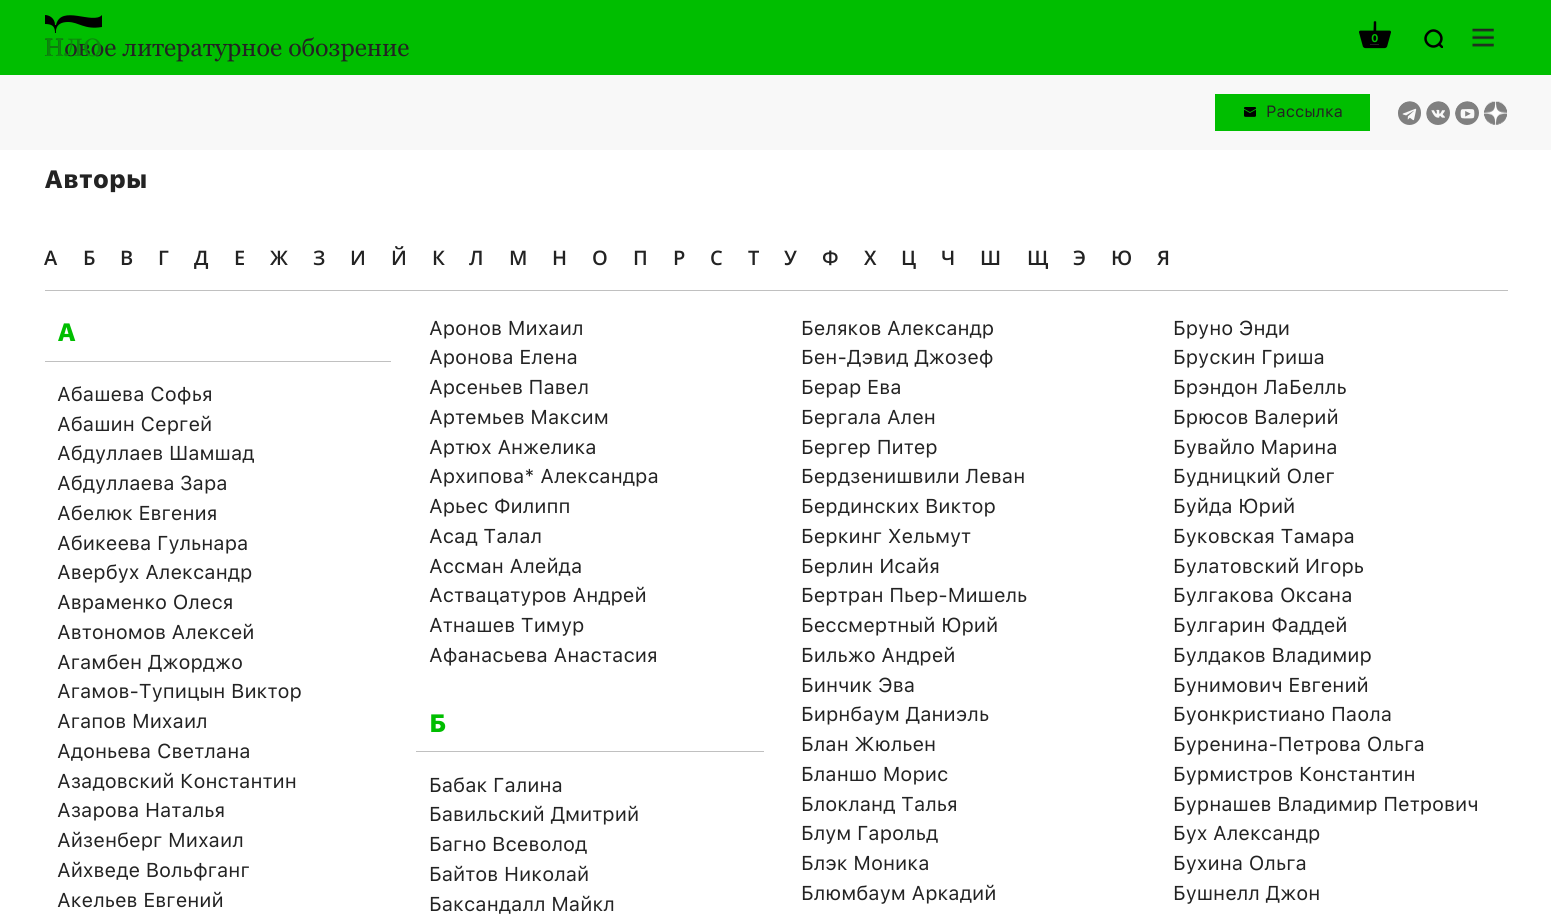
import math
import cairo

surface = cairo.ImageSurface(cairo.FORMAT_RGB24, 1551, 916)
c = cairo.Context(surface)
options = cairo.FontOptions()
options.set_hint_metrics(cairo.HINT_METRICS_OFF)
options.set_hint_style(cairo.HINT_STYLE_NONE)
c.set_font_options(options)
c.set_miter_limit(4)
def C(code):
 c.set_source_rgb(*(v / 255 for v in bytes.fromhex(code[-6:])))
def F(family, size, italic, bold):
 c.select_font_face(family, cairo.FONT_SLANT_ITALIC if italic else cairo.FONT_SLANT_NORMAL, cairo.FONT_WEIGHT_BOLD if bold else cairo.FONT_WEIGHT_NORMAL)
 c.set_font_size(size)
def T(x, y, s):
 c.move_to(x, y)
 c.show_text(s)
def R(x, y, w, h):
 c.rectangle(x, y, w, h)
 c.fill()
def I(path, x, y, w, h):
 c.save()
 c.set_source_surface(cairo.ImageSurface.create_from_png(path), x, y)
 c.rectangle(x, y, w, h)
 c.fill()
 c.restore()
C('ffffff')
c.paint()
C('00be00')
R(0,0,1551,75)
C('000000')
c.new_path()
c.move_to(102,27)
c.curve_to(84,30,79,22,68,22)
c.curve_to(54,22,56,33,56,33)
c.line_to(55,33)
c.curve_to(55,27,53,24,45,24)
c.line_to(45,15)
c.curve_to(49,15,55,18,55,25)
c.line_to(56,25)
c.curve_to(61,4,93,25,102,15)
c.close_path()
c.fill()
F('Georgia',25,0,0)
C('232323')
T(44,56,'Новое литературное обозрение')
C('0c880c')
T(44,56,'НЛО')
I('1.png',1359,21,32,28)
F('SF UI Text',11,0,1)
C('00be00')
T(1371,42,'0')
C('232323')
R(1370,44,9,1)
c.save()
c.rectangle(1423,28,20,20)
c.clip()
c.new_path()
c.move_to(1443.5,48.5)
c.line_to(1439,44)
c.move_to(1439,44)
c.curve_to(1446.5,36.5,1435,25.5,1428,33)
c.curve_to(1420.5,40.5,1431.5,51.5,1439,44)
c.close_path()
C('000000')
c.set_line_width(2.5)
c.set_line_cap(cairo.LINE_CAP_ROUND)
c.set_line_join(cairo.LINE_JOIN_ROUND)
c.stroke()
c.restore()
I('2.png',1472,28,22,19)
C('f8f8f8')
R(0,75,1551,75)
C('00be00')
R(1215,94,155,37)
I('3.png',1244,107,12,10)
F('SF UI Text',16.25,0,0)
C('232323')
T(1266,117,'Рассылка')
I('4.png',1398,101,23,24)
I('5.png',1426,101,24,24)
I('6.png',1455,101,24,24)
I('7.png',1484,101,23,24)
F('SF UI Text Black',25,0,0)
T(44,188,'Авторы')
C('c0c0c0')
R(45,290,1463,1)
F('Open Sans SemiBold',20,0,0)
C('232323')
T(44,265,'А')
T(83,265,'Б')
T(120,265,'В')
T(158,265,'Г')
T(194,265,'Д')
T(234,265,'Е')
T(270,265,'Ж')
T(313,265,'З')
T(350,265,'И')
T(391,265,'Й')
T(432,265,'К')
T(469,265,'Л')
T(509,265,'М')
T(552,265,'Н')
T(592,265,'О')
T(633,265,'П')
T(673,265,'Р')
T(710,265,'С')
T(748,265,'Т')
T(784,265,'У')
T(822,265,'Ф')
T(864,265,'Х')
T(901,265,'Ц')
T(941,265,'Ч')
T(980,265,'Ш')
T(1027,265,'Щ')
T(1073,265,'Э')
T(1111,265,'Ю')
T(1157,265,'Я')
F('SF UI Text',20,0,0)
T(429,335,'Аронов Михаил')
T(429,364,'Аронова Елена')
T(57,401,'Абашева Софья')
T(429,394,'Арсеньев Павел')
T(57,431,'Абашин Сергей')
T(429,424,'Артемьев Максим')
T(57,460,'Абдуллаев Шамшад')
T(429,454,'Артюх Анжелика')
T(57,490,'Абдуллаева Зара')
T(429,483,'Архипова* Александра')
T(57,520,'Абелюк Евгения')
T(429,513,'Арьес Филипп')
T(57,550,'Абикеева Гульнара')
T(429,543,'Асад Талал')
T(57,579,'Авербух Александр')
T(429,573,'Ассман Алейда')
T(57,609,'Авраменко Олеся')
T(429,602,'Аствацатуров Андрей')
T(57,639,'Автономов Алексей')
T(429,632,'Атнашев Тимур')
T(57,669,'Агамбен Джорджо')
T(429,662,'Афанасьева Анастасия')
T(57,698,'Агамов-Тупицын Виктор')
T(57,728,'Агапов Михаил')
T(57,758,'Адоньева Светлана')
T(57,788,'Азадовский Константин')
T(57,817,'Азарова Наталья')
T(57,847,'Айзенберг Михаил')
T(57,877,'Айхведе Вольфганг')
T(57,907,'Акельев Евгений')
C('c0c0c0')
R(45,361,346,1)
F('SF UI Text Black',25,0,0)
C('00be00')
T(57,341,'А')
F('SF UI Text',20,0,0)
C('232323')
T(801,335,'Беляков Александр')
T(1173,335,'Бруно Энди')
T(801,364,'Бен-Дэвид Джозеф')
T(1173,364,'Брускин Гриша')
T(801,394,'Берар Ева')
T(1173,394,'Брэндон ЛаБелль')
T(801,424,'Бергала Ален')
T(1173,424,'Брюсов Валерий')
T(801,454,'Бергер Питер')
T(1173,454,'Бувайло Марина')
T(801,483,'Бердзенишвили Леван')
T(1173,483,'Будницкий Олег')
T(801,513,'Бердинских Виктор')
T(1173,513,'Буйда Юрий')
T(801,543,'Беркинг Хельмут')
T(1173,543,'Буковская Тамара')
T(801,573,'Берлин Исайя')
T(1173,573,'Булатовский Игорь')
T(801,602,'Бертран Пьер-Мишель')
T(1173,602,'Булгакова Оксана')
T(801,632,'Бессмертный Юрий')
T(1173,632,'Булгарин Фаддей')
T(801,662,'Бильжо Андрей')
T(1173,662,'Булдаков Владимир')
T(801,692,'Бинчик Эва')
T(1173,692,'Бунимович Евгений')
T(801,721,'Бирнбаум Даниэль')
T(1173,721,'Буонкристиано Паола')
T(801,751,'Блан Жюльен')
T(1173,751,'Буренина-Петрова Ольга')
T(429,792,'Бабак Галина')
T(801,781,'Бланшо Морис')
T(1173,781,'Бурмистров Константин')
T(429,821,'Бавильский Дмитрий')
T(801,811,'Блокланд Талья')
T(1173,811,'Бурнашев Владимир Петрович')
T(429,851,'Багно Всеволод')
T(801,840,'Блум Гарольд')
T(1173,840,'Бух Александр')
T(429,881,'Байтов Николай')
T(801,870,'Блэк Моника')
T(1173,870,'Бухина Ольга')
T(429,911,'Баксандалл Майкл')
T(801,900,'Блюмбаум Аркадий')
T(1173,900,'Бушнелл Джон')
C('c0c0c0')
R(416,751,348,1)
F('SF UI Text Black',25,0,0)
C('00be00')
T(429,732,'Б')
surface.write_to_png('o.png')
